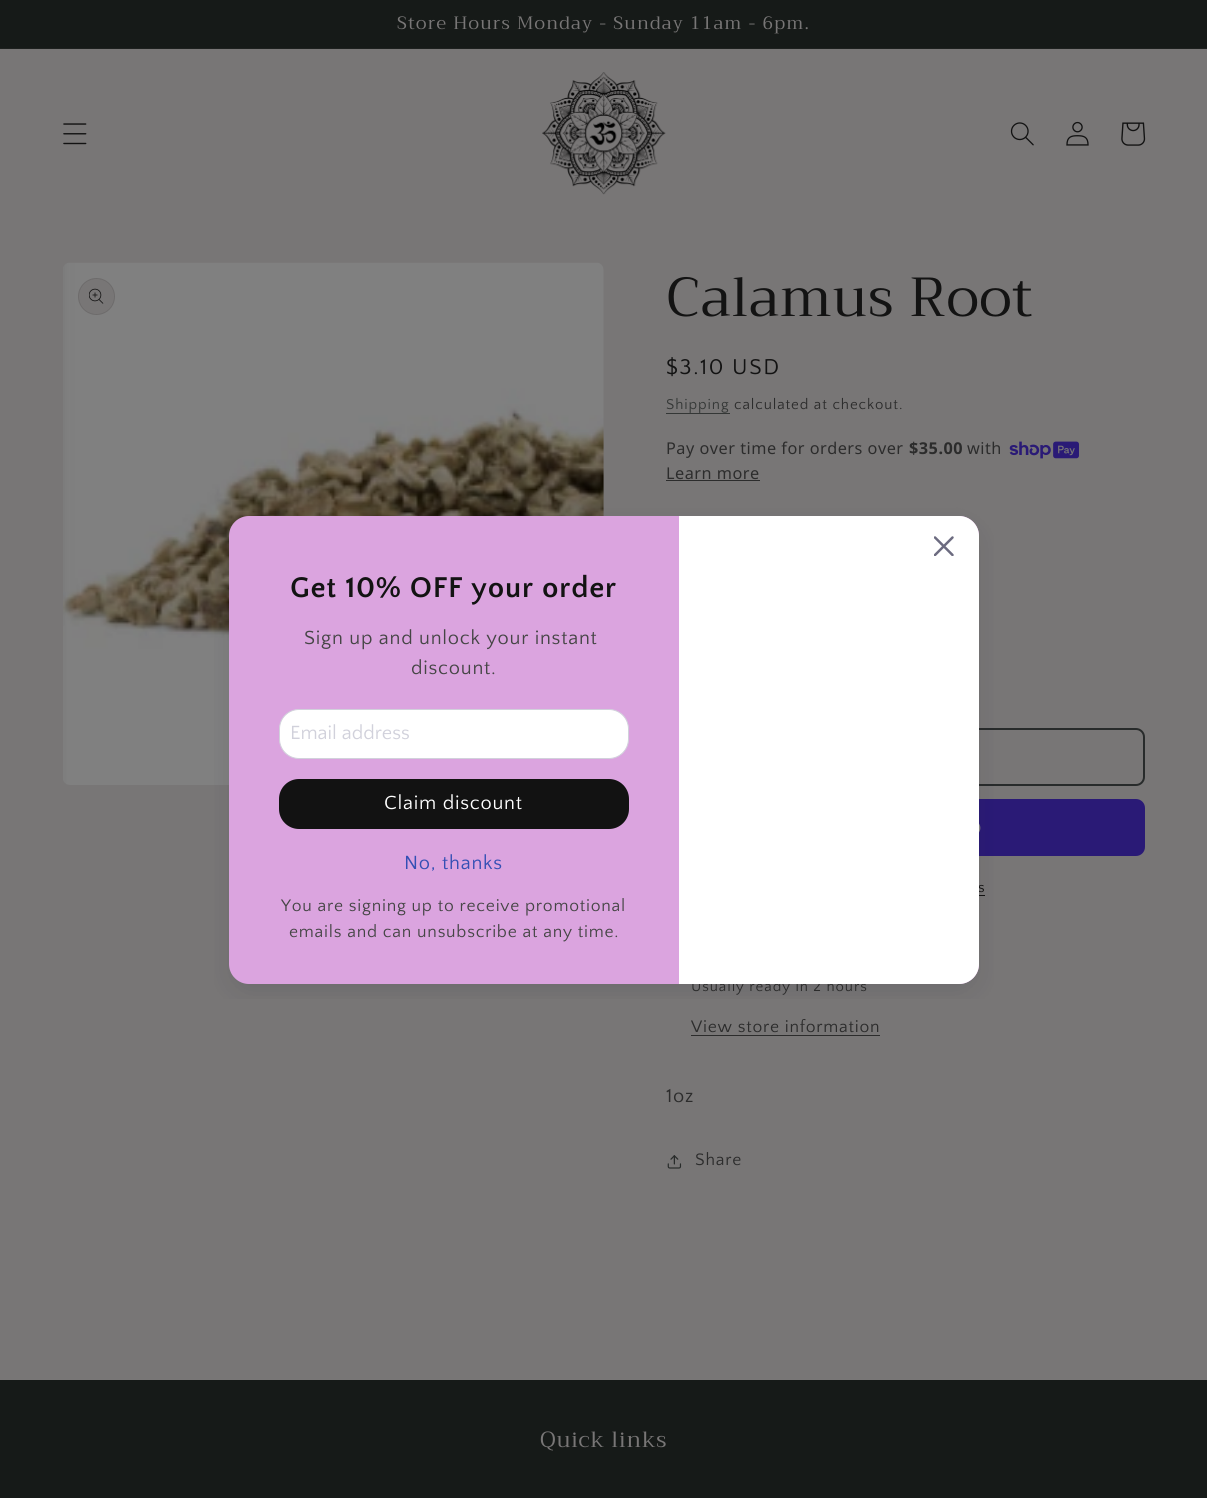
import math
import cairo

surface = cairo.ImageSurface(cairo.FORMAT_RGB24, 1207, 1498)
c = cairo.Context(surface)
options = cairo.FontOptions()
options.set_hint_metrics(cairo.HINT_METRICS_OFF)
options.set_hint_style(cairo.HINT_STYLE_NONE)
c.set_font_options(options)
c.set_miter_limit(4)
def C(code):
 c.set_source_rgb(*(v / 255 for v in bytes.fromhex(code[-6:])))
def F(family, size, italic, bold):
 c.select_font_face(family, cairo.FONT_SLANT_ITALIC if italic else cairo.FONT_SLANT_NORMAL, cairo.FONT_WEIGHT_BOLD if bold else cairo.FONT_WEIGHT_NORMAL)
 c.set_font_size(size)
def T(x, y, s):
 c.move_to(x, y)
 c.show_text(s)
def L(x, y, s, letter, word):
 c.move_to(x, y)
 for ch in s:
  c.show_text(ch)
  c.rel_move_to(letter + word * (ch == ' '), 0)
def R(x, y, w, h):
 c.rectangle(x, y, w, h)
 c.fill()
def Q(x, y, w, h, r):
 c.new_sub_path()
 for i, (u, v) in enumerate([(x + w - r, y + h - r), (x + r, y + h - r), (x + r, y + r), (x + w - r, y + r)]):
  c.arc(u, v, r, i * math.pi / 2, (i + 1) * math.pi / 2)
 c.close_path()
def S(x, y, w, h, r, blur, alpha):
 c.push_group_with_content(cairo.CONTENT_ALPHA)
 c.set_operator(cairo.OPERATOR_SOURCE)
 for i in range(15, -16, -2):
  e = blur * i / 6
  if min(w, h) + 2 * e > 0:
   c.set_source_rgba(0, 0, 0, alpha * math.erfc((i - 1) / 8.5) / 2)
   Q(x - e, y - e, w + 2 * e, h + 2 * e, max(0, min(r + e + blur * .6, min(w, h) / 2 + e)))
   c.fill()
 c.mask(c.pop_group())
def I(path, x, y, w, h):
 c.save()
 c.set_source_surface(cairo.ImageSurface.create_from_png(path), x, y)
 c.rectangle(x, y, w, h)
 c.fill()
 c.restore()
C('787676')
c.paint()
C('161a18')
R(0,0,1207,48)
C('1e211f')
R(0,48,1207,1)
F('Trirong',17.9,0,0)
C('787676')
L(397,29,'Store Hours Monday - Sunday 11am - 6pm.',1.25,0)
I('1.png',63,123,24,22)
I('2.png',542,72,124,123)
I('3.png',1010,122,24,24)
I('4.png',1066,121,23,25)
I('5.png',1121,122,25,24)
I('7.png',63,262,541,523)
Q(667,729,477,56,8)
C('282b2b')
c.stroke()
C('2a1a76')
Q(666,799,479,57,9)
c.fill()
I('10.png',979,823,2,10)
C('131313')
R(979,895,6,1)
c.save()
c.rectangle(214,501,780,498)
c.clip()
C('121127')
S(229,526,750,468,20,12.5,.1)
c.restore()
F('Quattrocento Sans',15,0,0)
L(978,892,'s',1,0)
C('2c2c2c')
L(691,991,'Usually ready in 2 hours',.9,0)
C('dba4df')
Q(229,516,750,468,20)
c.fill()
C('ffffff')
c.new_path()
c.move_to(679,516)
c.line_to(959,516)
c.curve_to(970,516,979,525,979,536)
c.line_to(979,964)
c.curve_to(979,975,970,984,959,984)
c.line_to(679,984)
c.close_path()
c.fill()
I('6.png',934,536,20,20)
F('Quattrocento Sans',30,0,1)
C('131313')
L(290,597,'Get 10% OFF your order',.75,0)
F('Quattrocento Sans',20,0,0)
C('454545')
L(304,644,'Sign up and unlock your instant',.75,0)
L(411,674,'discount.',.75,0)
C('ffffff')
Q(279.5,709.5,349,49,19.5)
c.fill_preserve()
C('d1d1db')
c.set_line_width(1)
c.stroke()
T(290,739,'Email address')
C('121212')
Q(279,779,350,50,20)
c.fill()
C('ffffff')
L(384,809,'Claim discount',.75,0)
C('334fb4')
L(404,869,'No, thanks',.75,0)
F('Quattrocento Sans',17.5,0,0)
C('454545')
L(281,911,'You are signing up to receive promotional',.75,0)
L(289,937,'emails and can unsubscribe at any time.',.75,0)
C('787676')
c.new_path()
c.arc(96.5,296.5,18.5,0,2 * math.pi)
c.fill()
c.arc(96.5,296.5,18,0,2 * math.pi)
c.set_source_rgba(0.075,0.075,0.075,0.1)
c.stroke()
I('8.png',89,288,15,16)
F('Trirong',55,0,0)
C('131313')
L(666,316,'Calamus Root',.75,0)
F('Quattrocento Sans',22.5,0,0)
L(666,374,'$3.10 USD',1.6,0)
F('Quattrocento Sans',15,0,0)
C('343736')
L(666,409,'Shipping',.9,0)
R(666,413,64,1)
C('2c2c2c')
L(734,409,'calculated at checkout.',.9,0)
F('Noto Sans',16.25,0,0)
L(666,454,'Pay over time for orders over',.5,0)
F('Noto Sans',16.25,0,1)
L(909,454,'$35.00',.5,0)
F('Noto Sans',16.25,0,0)
L(967,454,'with',.5,0)
I('9.png',1009,441,70,18)
L(666,479,'Learn more',.5,0)
R(666,480,94,1)
F('Quattrocento Sans',17.5,0,0)
L(691,1032,'View store information',.75,0)
R(691,1035,189,1)
F('Quattrocento Sans',20,0,0)
L(666,1102,'1oz',.75,0)
I('11.png',667,1155,15,14)
F('Quattrocento Sans',17.5,0,0)
L(695,1165,'Share',.75,0)
C('161a18')
R(0,1380,1207,118)
F('Trirong',22,0,0)
C('787676')
L(540,1447,'Quick links',.75,0)
surface.write_to_png('o.png')
